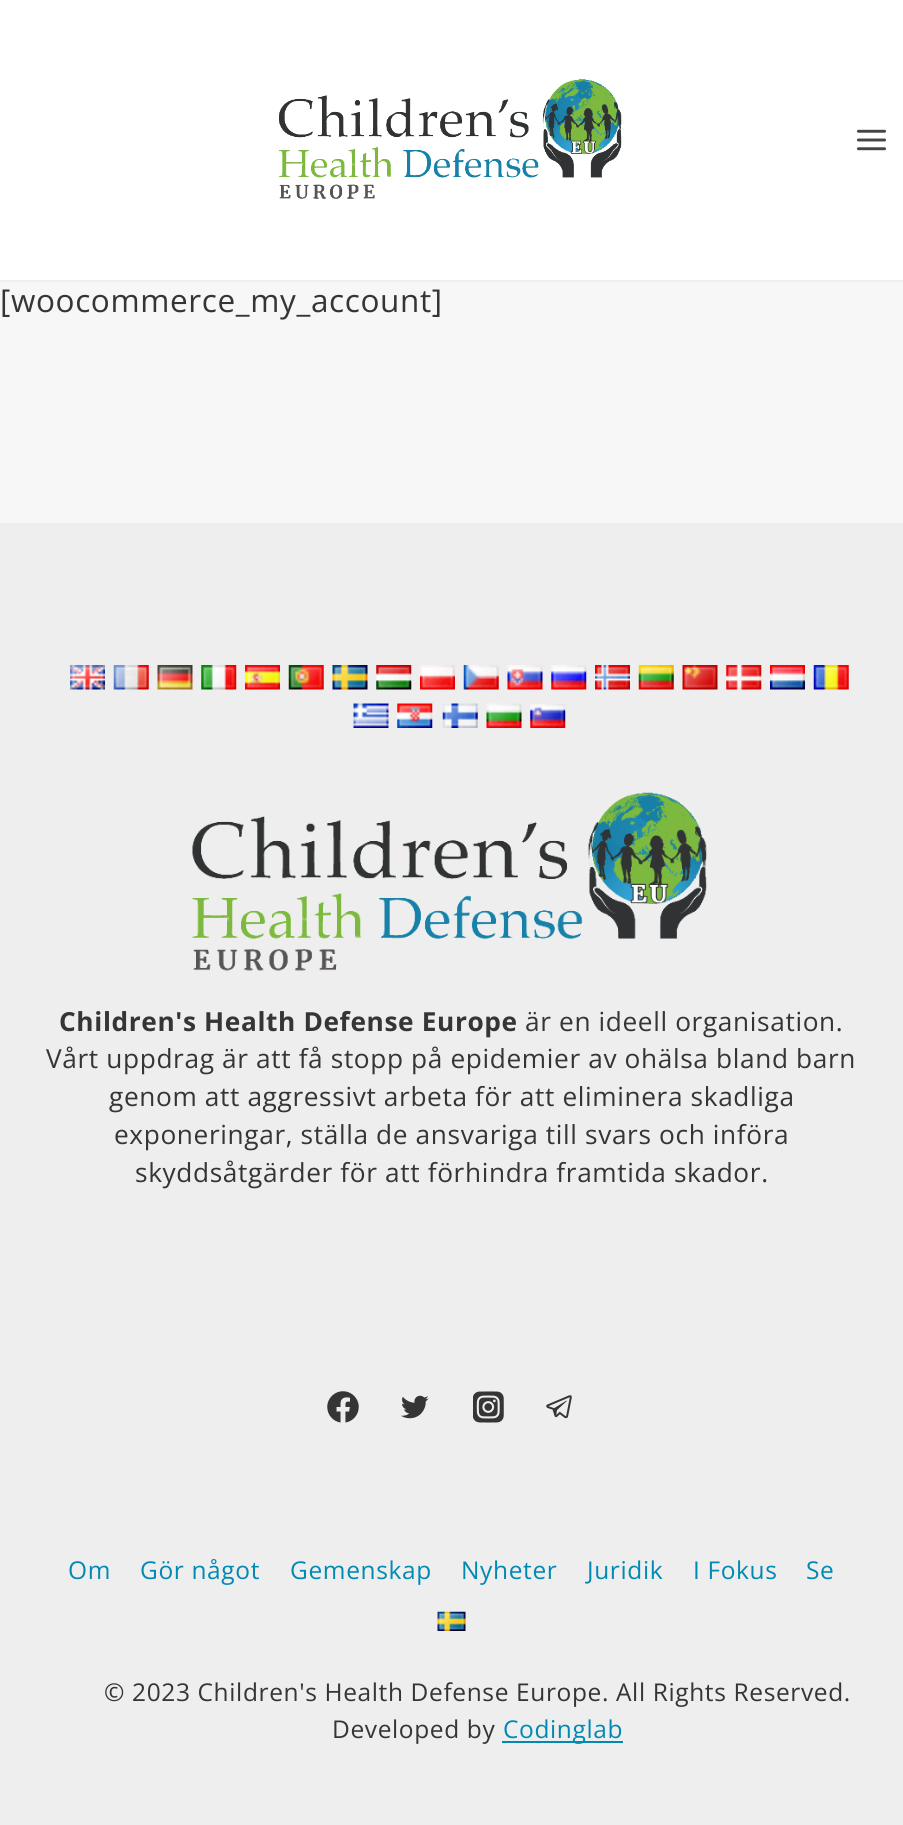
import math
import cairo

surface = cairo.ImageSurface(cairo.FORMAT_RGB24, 903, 1825)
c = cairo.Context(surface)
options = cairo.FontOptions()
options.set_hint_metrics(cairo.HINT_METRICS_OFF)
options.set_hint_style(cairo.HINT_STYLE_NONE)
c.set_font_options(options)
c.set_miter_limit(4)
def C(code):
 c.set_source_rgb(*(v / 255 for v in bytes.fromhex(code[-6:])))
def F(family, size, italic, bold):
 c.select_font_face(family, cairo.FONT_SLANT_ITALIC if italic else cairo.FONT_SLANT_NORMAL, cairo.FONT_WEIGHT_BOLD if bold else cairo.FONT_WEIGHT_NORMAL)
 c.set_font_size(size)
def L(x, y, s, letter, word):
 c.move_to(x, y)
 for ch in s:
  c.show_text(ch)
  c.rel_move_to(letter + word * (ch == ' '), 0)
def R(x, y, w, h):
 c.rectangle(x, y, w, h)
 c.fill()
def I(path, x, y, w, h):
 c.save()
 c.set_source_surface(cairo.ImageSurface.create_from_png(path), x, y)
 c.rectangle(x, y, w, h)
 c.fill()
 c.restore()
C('f7f7f7')
c.paint()
C('ffffff')
R(0,0,903,280)
C('eeeeee')
R(0,280,903,2)
I('1.png',279,79,343,120)
I('2.png',856,129,31,22)
F('Open Sans',31.5,0,0)
C('353535')
L(0,312,'[woocommerce_my_account]',.63,0)
C('eeeeee')
R(0,523,903,1302)
I('3.png',70,665,35,25)
I('4.png',113,665,36,25)
I('5.png',157,665,36,25)
I('6.png',201,665,36,25)
I('7.png',245,665,35,25)
I('8.png',288,665,36,25)
I('9.png',332,665,36,25)
I('10.png',376,665,36,25)
I('11.png',420,665,35,25)
I('12.png',463,665,36,25)
I('13.png',507,665,36,25)
I('14.png',551,665,36,25)
I('15.png',595,665,35,25)
I('16.png',638,665,36,25)
I('17.png',682,665,36,25)
I('18.png',726,665,36,25)
I('19.png',770,665,35,25)
I('20.png',813,665,36,25)
I('21.png',353,703,36,25)
I('22.png',397,703,36,25)
I('23.png',442,703,36,25)
I('24.png',486,703,36,25)
I('25.png',530,704,36,24)
I('26.png',192,792,515,179)
F('Open Sans',26.25,0,1)
C('353535')
L(59,1031,'Children\'s Health Defense Europe',.63,0)
F('Open Sans',26.25,0,0)
L(525,1031,'är en ideell organisation.',.63,0)
L(46,1068,'Vårt uppdrag är att få stopp på epidemier av ohälsa bland barn',.63,0)
L(109,1106,'genom att aggressivt arbeta för att eliminera skadliga',.63,0)
L(114,1144,'exponeringar, ställa de ansvariga till svars och införa',.63,0)
L(135,1182,'skyddsåtgärder för att förhindra framtida skador.',.63,0)
I('27.png',327,1391,32,32)
I('28.png',401,1395,28,24)
I('29.png',473,1391,31,32)
I('30.png',546,1395,26,24)
F('Open Sans',24.5,0,0)
C('008ab3')
L(68,1579,'Om',.63,0)
L(140,1579,'Gör något',.63,0)
L(290,1579,'Gemenskap',.63,0)
L(461,1579,'Nyheter',.63,0)
L(587,1579,'Juridik',.63,0)
L(693,1579,'I Fokus',.63,0)
L(806,1579,'Se',.63,0)
I('31.png',437,1611,29,20)
C('353535')
L(104,1701,'© 2023 Children\'s Health Defense Europe. All Rights Reserved.',.63,0)
L(332,1738,'Developed by',.63,0)
C('008ab3')
R(502,1741,121,2)
L(503,1738,'Codinglab',.63,0)
surface.write_to_png('o.png')
